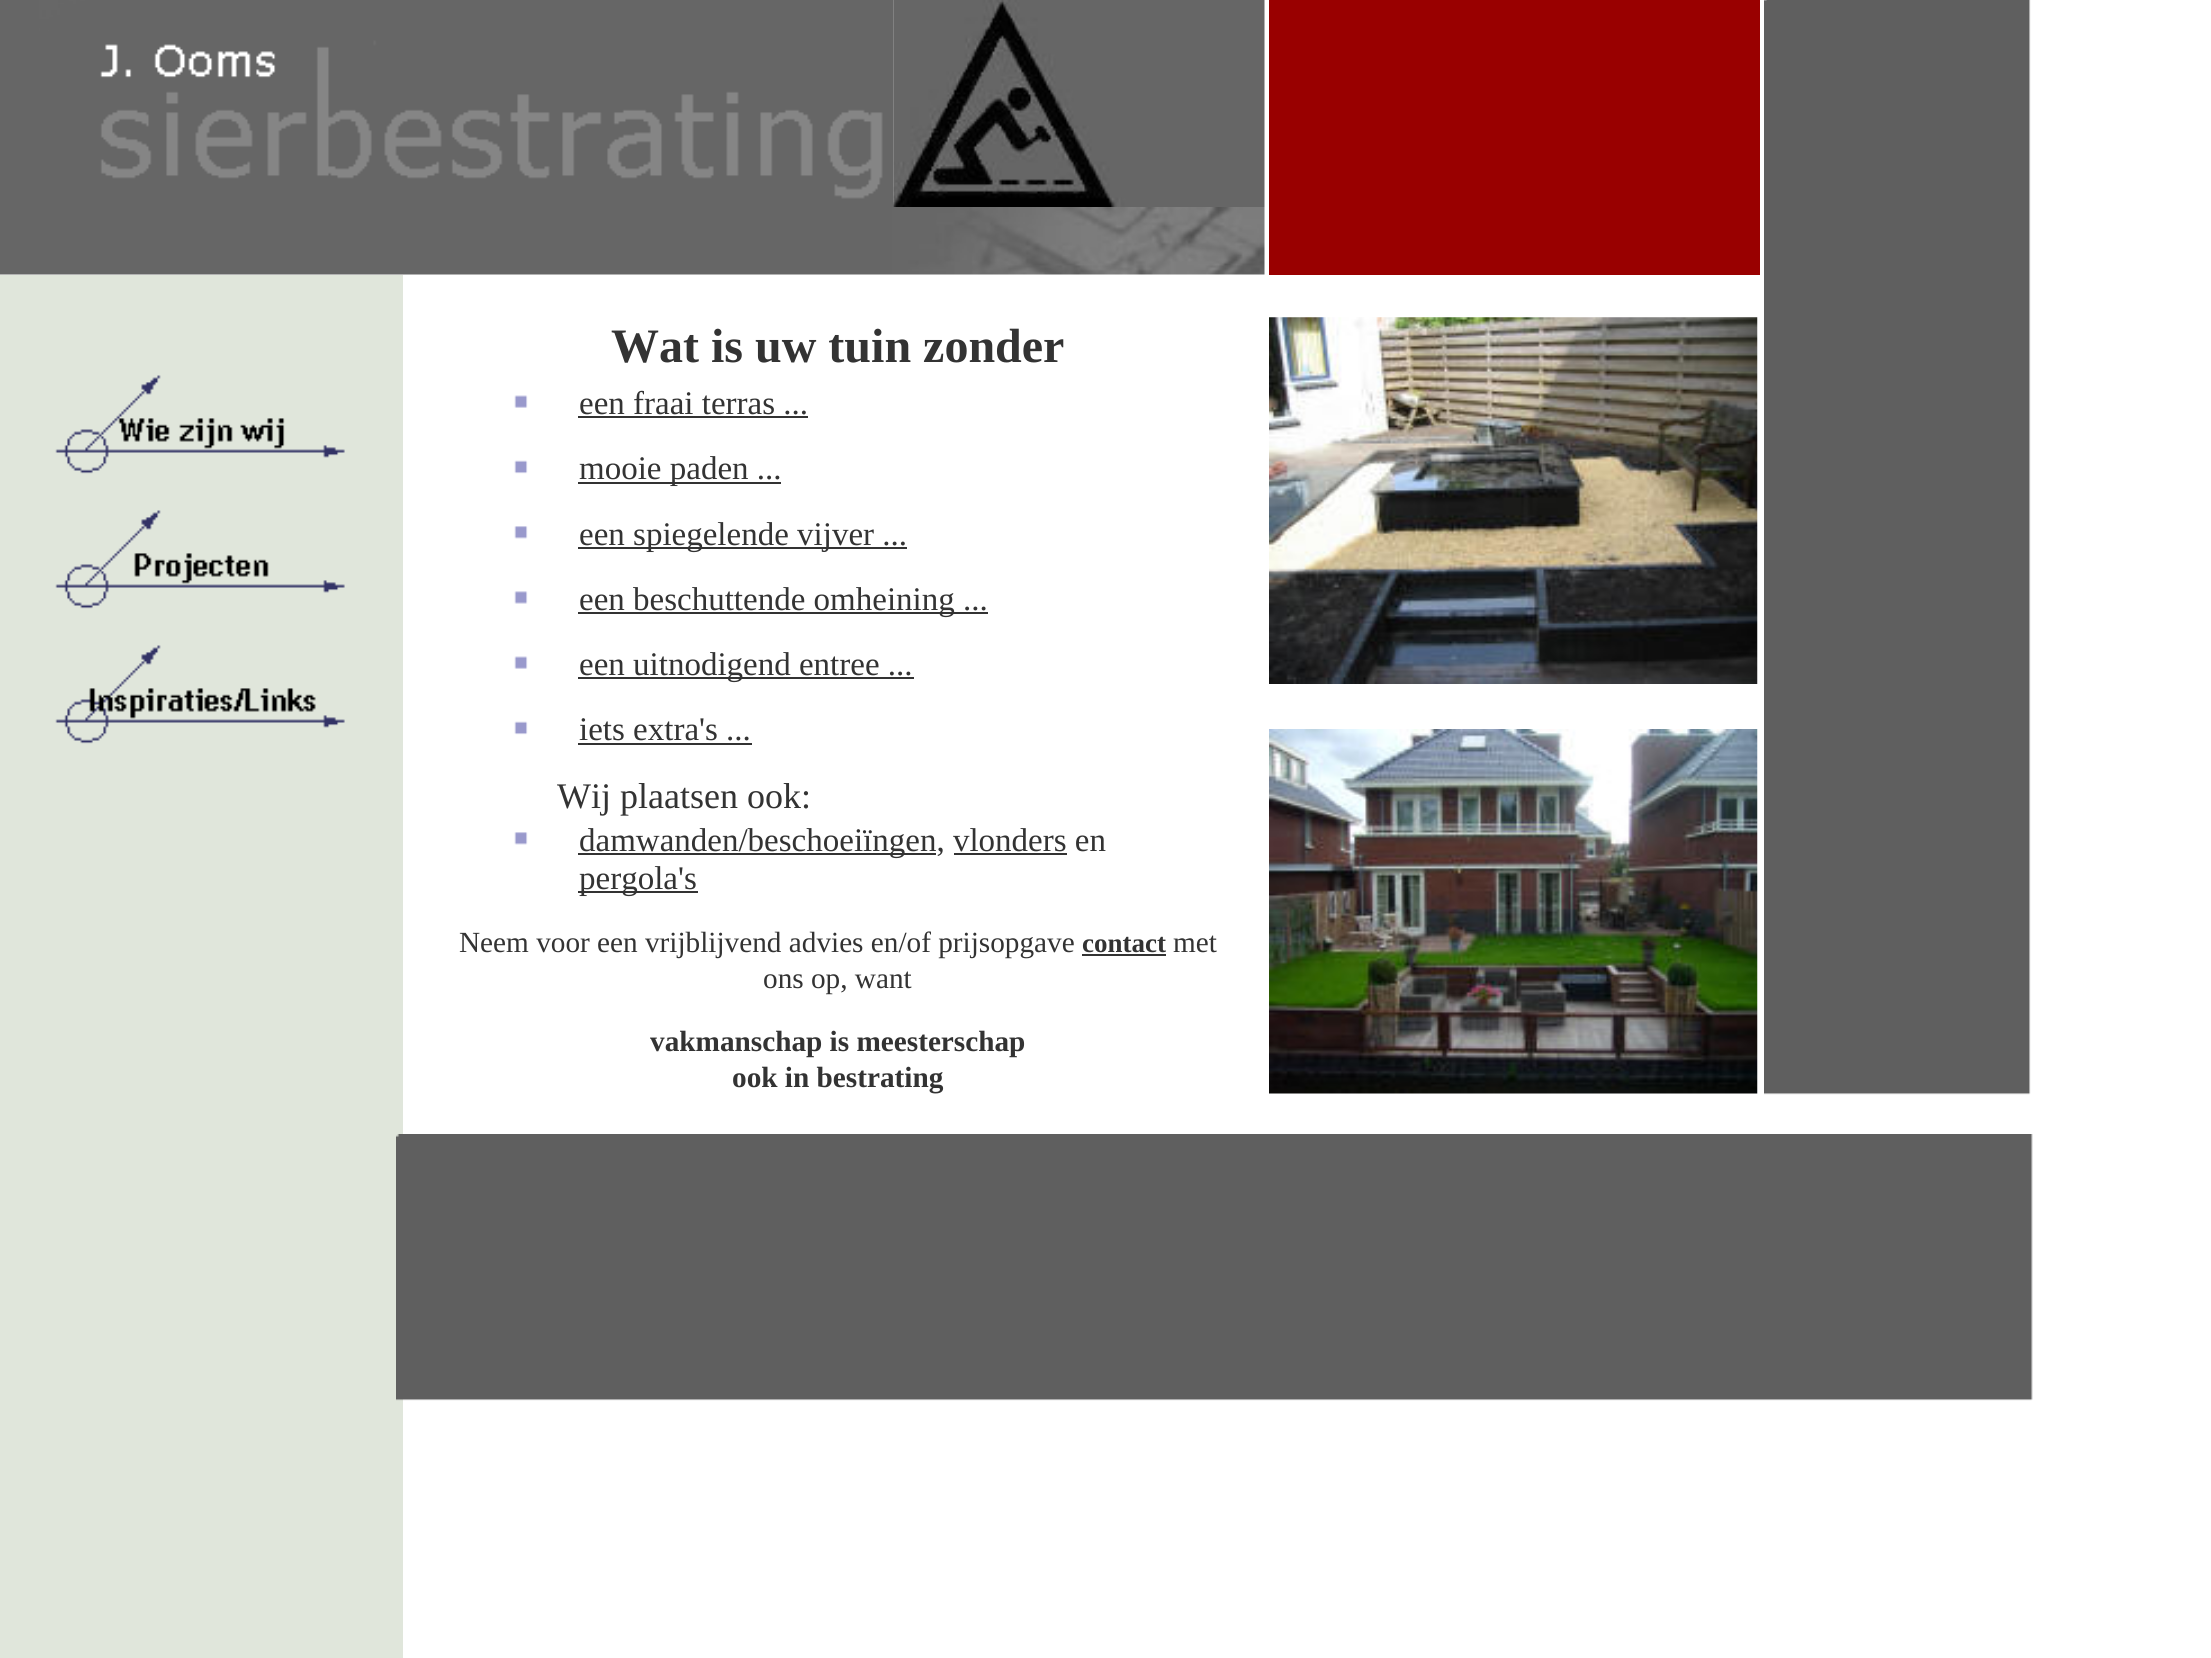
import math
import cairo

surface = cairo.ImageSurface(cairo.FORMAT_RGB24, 2211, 1658)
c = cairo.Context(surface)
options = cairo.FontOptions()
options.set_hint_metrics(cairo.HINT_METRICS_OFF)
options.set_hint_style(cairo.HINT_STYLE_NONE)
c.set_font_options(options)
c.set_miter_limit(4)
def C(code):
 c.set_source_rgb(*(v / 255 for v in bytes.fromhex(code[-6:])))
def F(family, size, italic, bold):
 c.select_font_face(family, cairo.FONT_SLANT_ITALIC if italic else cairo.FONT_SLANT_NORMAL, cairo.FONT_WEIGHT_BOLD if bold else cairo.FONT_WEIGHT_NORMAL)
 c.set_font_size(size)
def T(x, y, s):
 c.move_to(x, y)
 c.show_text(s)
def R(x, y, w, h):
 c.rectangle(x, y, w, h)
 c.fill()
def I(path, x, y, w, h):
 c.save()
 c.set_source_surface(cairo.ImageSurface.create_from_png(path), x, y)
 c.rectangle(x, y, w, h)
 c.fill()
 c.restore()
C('ffffff')
c.paint()
I('1.png',0,0,894,207)
I('2.png',893,0,372,207)
I('3.png',0,207,1265,68)
C('990000')
R(1269,0,491,275)
C('e0e6db')
R(0,275,403,1383)
I('4.png',1764,0,267,1095)
I('5.png',396,1134,1637,267)
I('6.png',1269,317,489,367)
I('7.png',1269,729,489,365)
I('8.png',55,375,290,99)
I('9.png',55,510,290,99)
I('10.png',55,645,290,99)
F('Liberation Serif',48,0,1)
C('333333')
T(611,362,'Wat is uw tuin zonder')
I('11.png',514,395,14,13)
F('Liberation Serif',33,0,0)
T(579,414,'een fraai terras ...')
R(578,416,230,2)
I('12.png',514,460,14,14)
R(578,482,203,2)
T(579,479,'mooie paden ...')
I('13.png',514,526,14,13)
R(578,547,329,2)
T(579,545,'een spiegelende vijver ...')
I('14.png',514,591,14,13)
R(578,612,410,2)
T(579,610,'een beschuttende omheining ...')
I('11.png',514,656,14,13)
R(578,677,336,2)
T(579,675,'een uitnodigend entree ...')
I('12.png',514,721,14,14)
T(579,740,'iets extra\'s ...')
R(578,743,174,2)
F('Liberation Serif',36,0,0)
T(557,808,'Wij plaatsen ook:')
I('13.png',514,832,14,13)
R(578,853,358,2)
F('Liberation Serif',33,0,0)
T(579,851,'damwanden/beschoeiïngen, vlonders en')
R(954,853,113,2)
R(578,891,120,2)
T(579,889,'pergola\'s')
F('Liberation Serif',29.25,0,0)
T(459,952,'Neem voor een vrijblijvend advies en/of prijsopgave')
F('Liberation Serif',27,0,1)
T(1082,952,'contact')
R(1082,954,84,2)
F('Liberation Serif',29.25,0,0)
T(1173,952,'met')
T(763,988,'ons op, want')
F('Liberation Serif',29.25,0,1)
T(650,1051,'vakmanschap is meesterschap')
T(732,1087,'ook in bestrating')
surface.write_to_png('o.png')
